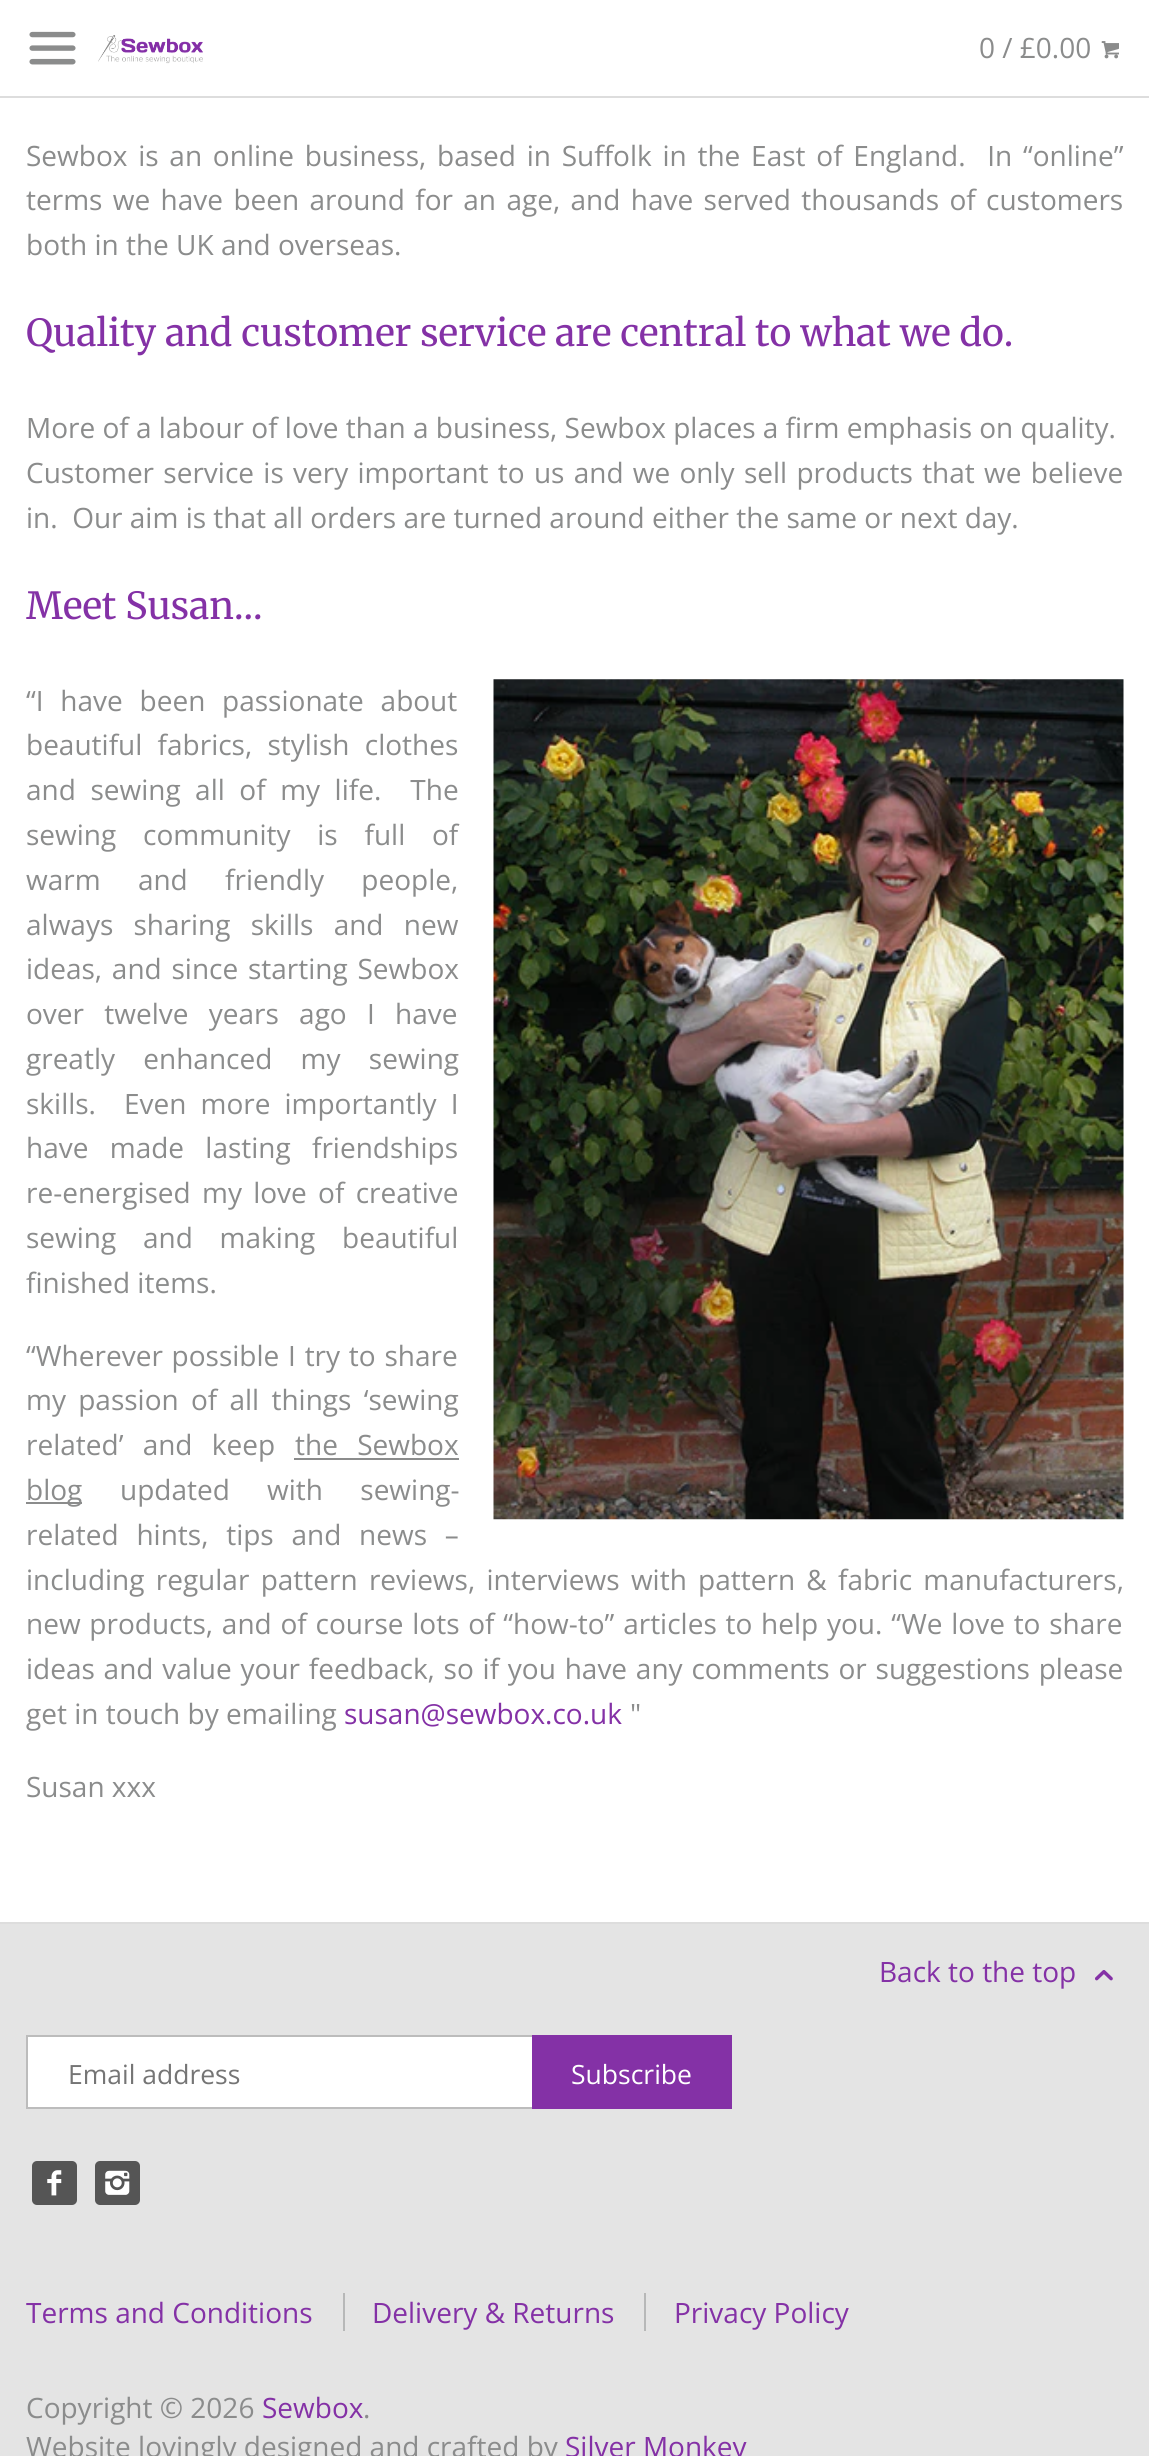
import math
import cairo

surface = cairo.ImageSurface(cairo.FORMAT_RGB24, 1149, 2456)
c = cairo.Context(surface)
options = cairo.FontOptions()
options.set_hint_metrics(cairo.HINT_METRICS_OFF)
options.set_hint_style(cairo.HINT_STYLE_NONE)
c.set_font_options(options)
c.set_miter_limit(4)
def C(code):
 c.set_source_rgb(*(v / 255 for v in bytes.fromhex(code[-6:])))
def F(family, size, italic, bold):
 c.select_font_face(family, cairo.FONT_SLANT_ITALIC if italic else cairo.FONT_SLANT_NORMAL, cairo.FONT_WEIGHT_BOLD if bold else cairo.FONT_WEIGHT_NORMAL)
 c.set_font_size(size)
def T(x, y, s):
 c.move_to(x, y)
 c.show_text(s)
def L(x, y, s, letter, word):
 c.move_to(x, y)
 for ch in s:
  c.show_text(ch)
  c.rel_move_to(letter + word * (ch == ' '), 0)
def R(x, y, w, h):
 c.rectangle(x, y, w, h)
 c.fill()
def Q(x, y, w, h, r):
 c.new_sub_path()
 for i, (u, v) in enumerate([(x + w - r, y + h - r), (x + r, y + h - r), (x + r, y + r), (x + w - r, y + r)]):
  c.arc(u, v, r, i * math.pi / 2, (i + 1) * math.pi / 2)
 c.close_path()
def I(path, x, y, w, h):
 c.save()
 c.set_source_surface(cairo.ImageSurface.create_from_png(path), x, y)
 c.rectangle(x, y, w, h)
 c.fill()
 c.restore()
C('e4e4e4')
c.paint()
C('ffffff')
R(0,98,1149,1824)
R(0,0,1149,96)
C('dddddd')
R(0,96,1149,2)
I('1.png',29,31,47,34)
I('2.png',98,35,105,29)
F('Open Sans',28,0,0)
C('8b8c8c')
T(979,58,'0 / £0.00')
I('3.png',1101,41,18,18)
L(26,166,'Sewbox is an online business, based in Suffolk in the East of England.  In “online”',0,3.5)
L(26,210,'terms we have been around for an age, and have served thousands of customers',0,3.1)
T(26,255,'both in the UK and overseas.')
F('Merriweather',37.3,0,0)
C('8431a6')
T(26,346,'Quality and customer service are central to what we do.')
F('Open Sans',28,0,0)
C('8b8c8c')
T(26,438,'More of a labour of love than a business, Sewbox places a firm emphasis on quality.')
L(26,483,'Customer service is very important to us and we only sell products that we believe',0,2)
T(26,528,'in.  Our aim is that all orders are turned around either the same or next day.')
F('Merriweather',37.3,0,0)
C('8431a6')
T(26,619,'Meet Susan...')
F('Open Sans',28,0,0)
C('8b8c8c')
L(26,711,'“I have been passionate about',0,9.5)
L(26,755,'beautiful fabrics, stylish clothes',0,8)
L(26,800,'and sewing all of my life.  The',0,7.25)
L(26,845,'sewing community is full of',0,19.5)
L(26,890,'warm and friendly people,',0,30)
L(26,935,'always sharing skills and new',0,13)
L(26,979,'ideas, and since starting Sewbox',0,2.5)
L(26,1024,'over twelve years ago I have',0,13)
L(26,1069,'greatly enhanced my sewing',0,21)
L(26,1114,'skills.  Even more importantly I',0,6.75)
L(26,1158,'have made lasting friendships',0,14)
L(26,1203,'re-energised my love of creative',0,4)
L(26,1248,'sewing and making beautiful',0,19.5)
T(26,1293,'finished items.')
I('4.png',493,679,631,841)
L(26,1366,'“Wherever possible I try to share',0,1.5)
L(26,1410,'my passion of all things ‘sewing',0,5)
L(26,1455,'related’ and keep',0,12)
L(295,1455,'the Sewbox',0,12)
R(294,1458,165,2)
R(26,1502,56,2)
T(26,1500,'blog')
L(120,1500,'updated with sewing-',0,30)
L(26,1545,'related hints, tips and news –',0,10.5)
L(26,1590,'including regular pattern reviews, interviews with pattern & fabric manufacturers,',0,4)
L(26,1634,'new products, and of course lots of “how-to” articles to help you. “We love to share',0,1.5)
L(26,1679,'ideas and value your feedback, so if you have any comments or suggestions please',0,1.5)
T(26,1724,'get in touch by emailing')
C('8431a6')
T(344,1724,'susan@sewbox.co.uk')
C('8b8c8c')
T(630,1724,'"')
T(26,1797,'Susan xxx')
C('dddddd')
R(0,1922,1149,2)
C('8431a6')
T(879,1982,'Back to the top')
I('5.png',1095,1970,18,11)
C('ffffff')
R(28,2037,504,70)
c.rectangle(27,2036,702,72)
C('bcbcbc')
c.stroke()
F('Open Sans',26.5,0,0)
C('757575')
T(68,2084,'Email address')
C('8431a6')
R(532,2035,200,74)
C('ffffff')
T(571,2084,'Subscribe')
C('555555')
Q(32,2161,45,44,5)
c.fill()
I('6.png',47,2170,15,26)
Q(95,2161,45,44,5)
c.fill()
I('7.png',105,2170,25,25)
F('Open Sans',28,0,0)
C('8431a6')
T(26,2323,'Terms and Conditions')
T(372,2323,'Delivery & Returns')
C('b7b8b8')
R(343,2293,2,38)
C('8431a6')
T(674,2323,'Privacy Policy')
C('b7b8b8')
R(644,2293,2,38)
C('8b8c8c')
T(26,2418,'Copyright © 2026')
C('8431a6')
T(262,2418,'Sewbox')
C('8b8c8c')
T(363,2418,'.')
T(26,2457,'Website lovingly designed and crafted by')
C('8431a6')
T(565,2457,'Silver Monkey')
surface.write_to_png('o.png')
